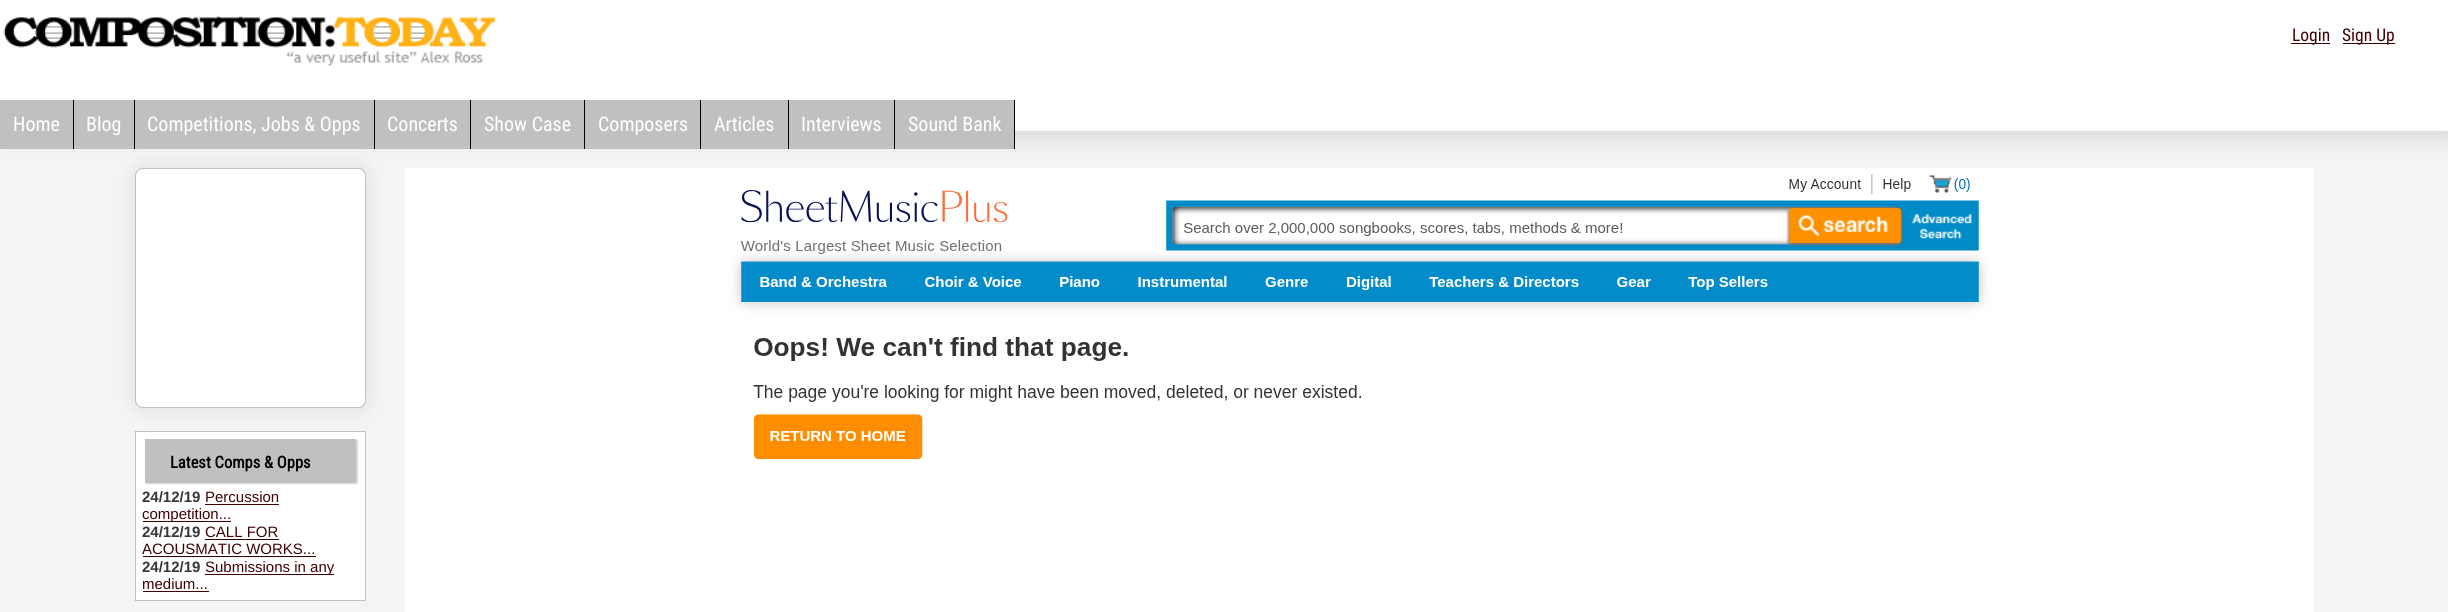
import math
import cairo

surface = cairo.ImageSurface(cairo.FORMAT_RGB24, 2448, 612)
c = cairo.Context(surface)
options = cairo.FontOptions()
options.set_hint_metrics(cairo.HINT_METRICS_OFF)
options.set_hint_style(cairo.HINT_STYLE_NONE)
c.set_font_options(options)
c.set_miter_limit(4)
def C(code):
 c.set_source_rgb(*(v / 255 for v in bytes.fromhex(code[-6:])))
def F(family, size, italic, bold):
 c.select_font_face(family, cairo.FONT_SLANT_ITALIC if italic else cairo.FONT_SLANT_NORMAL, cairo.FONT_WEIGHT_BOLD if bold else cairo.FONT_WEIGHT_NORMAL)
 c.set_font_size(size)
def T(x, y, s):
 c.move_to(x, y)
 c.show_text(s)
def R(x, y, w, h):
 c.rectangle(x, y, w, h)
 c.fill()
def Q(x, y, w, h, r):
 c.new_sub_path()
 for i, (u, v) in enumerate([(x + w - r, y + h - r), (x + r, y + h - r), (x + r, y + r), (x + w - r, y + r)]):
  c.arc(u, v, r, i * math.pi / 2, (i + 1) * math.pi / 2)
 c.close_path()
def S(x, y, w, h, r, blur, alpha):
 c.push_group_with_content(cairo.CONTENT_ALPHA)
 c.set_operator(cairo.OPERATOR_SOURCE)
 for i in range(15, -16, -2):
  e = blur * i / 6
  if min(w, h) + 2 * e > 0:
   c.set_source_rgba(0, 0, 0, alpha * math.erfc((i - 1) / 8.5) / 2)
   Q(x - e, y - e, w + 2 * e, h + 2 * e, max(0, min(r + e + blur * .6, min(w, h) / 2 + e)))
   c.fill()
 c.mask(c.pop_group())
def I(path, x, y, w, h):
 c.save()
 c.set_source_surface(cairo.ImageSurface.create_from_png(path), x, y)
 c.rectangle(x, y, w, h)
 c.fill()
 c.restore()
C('f3f4f5')
c.paint()
C('cccccc')
S(1,1,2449,132,0,12.5,1)
C('ffffff')
R(0,0,2448,131)
I('1.png',3,16,493,51)
C('420203')
R(2291,43,39,1)
F('Roboto Condensed',17.5,0,0)
T(2292,41,'Login')
R(2343,43,52,1)
T(2342,41,'Sign Up')
C('c0c0c0')
R(0,100,73,49)
C('000000')
R(73,100,1,49)
F('Roboto Condensed',20,0,0)
C('ffffff')
T(13,131,'Home')
C('000000')
S(135,168,231,240,8,9.5,.1)
C('c0c0c0')
R(74,100,60,49)
C('000000')
R(134,100,1,49)
C('ffffff')
T(86,131,'Blog')
C('c0c0c0')
R(135,100,239,49)
C('000000')
R(374,100,1,49)
C('ffffff')
T(147,131,'Competitions, Jobs & Opps')
C('c0c0c0')
R(375,100,95,49)
C('000000')
R(470,100,1,49)
C('ffffff')
T(387,131,'Concerts')
C('c0c0c0')
R(471,100,113,49)
C('000000')
R(584,100,1,49)
C('ffffff')
T(484,131,'Show Case')
C('c0c0c0')
R(585,100,115,49)
C('000000')
R(700,100,1,49)
C('ffffff')
T(598,131,'Composers')
C('c0c0c0')
R(701,100,87,49)
C('000000')
R(788,100,1,49)
C('ffffff')
T(714,131,'Articles')
C('c0c0c0')
R(789,100,105,49)
C('000000')
R(894,100,1,49)
C('ffffff')
T(801,131,'Interviews')
C('c0c0c0')
R(895,100,119,49)
C('000000')
R(1014,100,1,49)
C('ffffff')
T(908,131,'Sound Bank')
Q(135.5,168.5,230,239,7.5)
c.fill_preserve()
C('c0c0c0')
c.set_line_width(1)
c.stroke()
C('ffffff')
c.rectangle(135.5,431.5,230,169)
c.fill_preserve()
C('c0c0c0')
c.stroke()
C('dadada')
S(146,440,212,44,0,.5,1)
C('c0c0c0')
R(145,439,211,44)
F('Roboto Condensed',16.5,0,1)
C('000000')
T(170,468,'Latest Comps & Opps')
F('Liberation Sans',15,0,1)
C('363636')
T(142,502,'24/12/19')
F('Liberation Sans',15,0,0)
C('420203')
T(205,502,'Percussion')
R(205,504,74,1)
R(143,521,88,1)
T(142,519,'competition...')
F('Liberation Sans',15,0,1)
C('363636')
T(142,537,'24/12/19')
F('Liberation Sans',15,0,0)
C('420203')
T(205,537,'CALL FOR')
R(205,539,74,1)
T(142,554,'ACOUSMATIC WORKS...')
R(143,556,173,1)
F('Liberation Sans',15,0,1)
C('363636')
T(142,572,'24/12/19')
C('420203')
R(205,574,129,1)
F('Liberation Sans',15,0,0)
T(205,572,'Submissions in any')
T(142,589,'medium...')
R(143,591,66,1)
I('2.png',405,168,1909,444)
surface.write_to_png('o.png')
